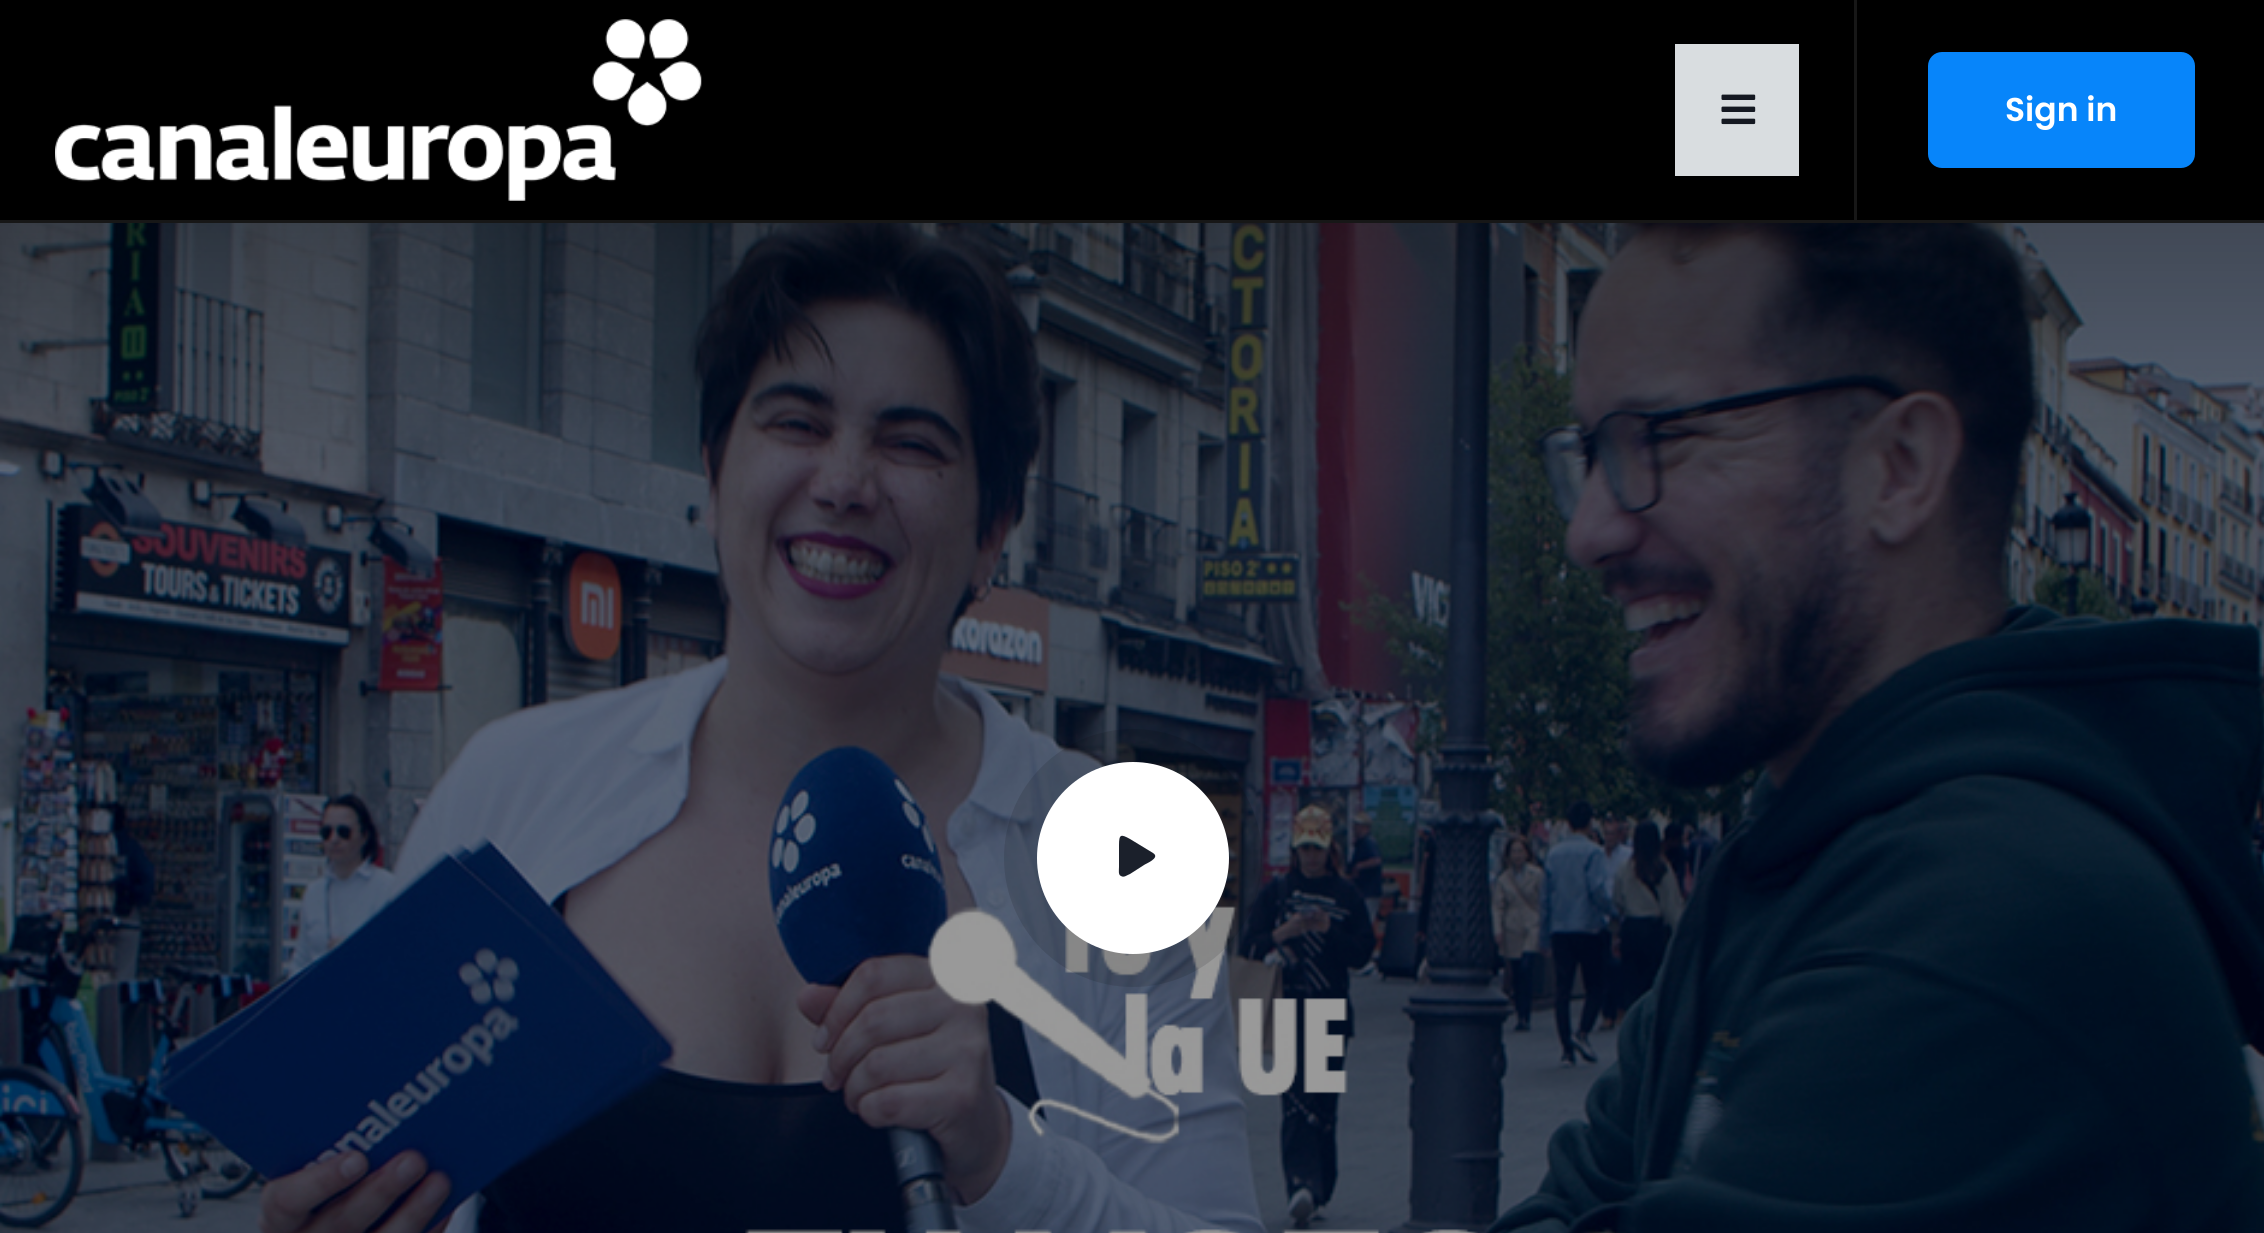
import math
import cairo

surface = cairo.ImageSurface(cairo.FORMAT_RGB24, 2264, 1233)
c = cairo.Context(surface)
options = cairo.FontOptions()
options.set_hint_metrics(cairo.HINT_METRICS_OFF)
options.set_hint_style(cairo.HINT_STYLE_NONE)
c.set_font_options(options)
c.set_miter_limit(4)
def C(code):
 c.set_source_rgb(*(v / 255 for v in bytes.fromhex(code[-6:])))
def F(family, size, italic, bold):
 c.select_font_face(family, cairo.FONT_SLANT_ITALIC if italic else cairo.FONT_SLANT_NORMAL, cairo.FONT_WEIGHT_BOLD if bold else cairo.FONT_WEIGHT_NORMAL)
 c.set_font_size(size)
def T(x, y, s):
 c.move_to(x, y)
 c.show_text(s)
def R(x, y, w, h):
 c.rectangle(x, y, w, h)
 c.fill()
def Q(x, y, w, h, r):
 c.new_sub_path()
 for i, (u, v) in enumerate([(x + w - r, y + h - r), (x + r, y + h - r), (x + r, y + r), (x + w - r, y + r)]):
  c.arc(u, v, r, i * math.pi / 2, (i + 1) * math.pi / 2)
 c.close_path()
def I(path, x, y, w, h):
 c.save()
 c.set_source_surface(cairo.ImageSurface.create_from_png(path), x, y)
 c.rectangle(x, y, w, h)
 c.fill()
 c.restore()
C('ffffff')
c.paint()
C('000000')
R(0,0,2264,220)
C('171717')
R(0,220,2264,3)
I('1.png',55,19,647,182)
R(1854,0,3,220)
C('d9dde0')
R(1675,44,124,132)
I('2.png',1721,94,35,31)
C('0785fa')
Q(1928,52,267,116,14)
c.fill()
F('Poppins SemiBold',33,0,0)
C('ffffff')
T(2005,121,'Sign in')
I('3.png',0,223,2264,1010)
c.arc(1133,858,112.5,0,2 * math.pi)
c.set_source_rgba(0,0,0,0.12)
c.set_line_width(33)
c.stroke()
C('ffffff')
c.arc(1133,858,96,0,2 * math.pi)
c.fill()
C('1b202b')
c.new_path()
c.move_to(1153,853)
c.curve_to(1161,858,1145,864,1144,865)
c.line_to(1130,874)
c.curve_to(1127,875,1124,878,1121,876)
c.curve_to(1118,875,1119,870,1119,867)
c.line_to(1119,845)
c.curve_to(1119,834,1121,834,1130,839)
c.close_path()
c.fill()
surface.write_to_png('o.png')
